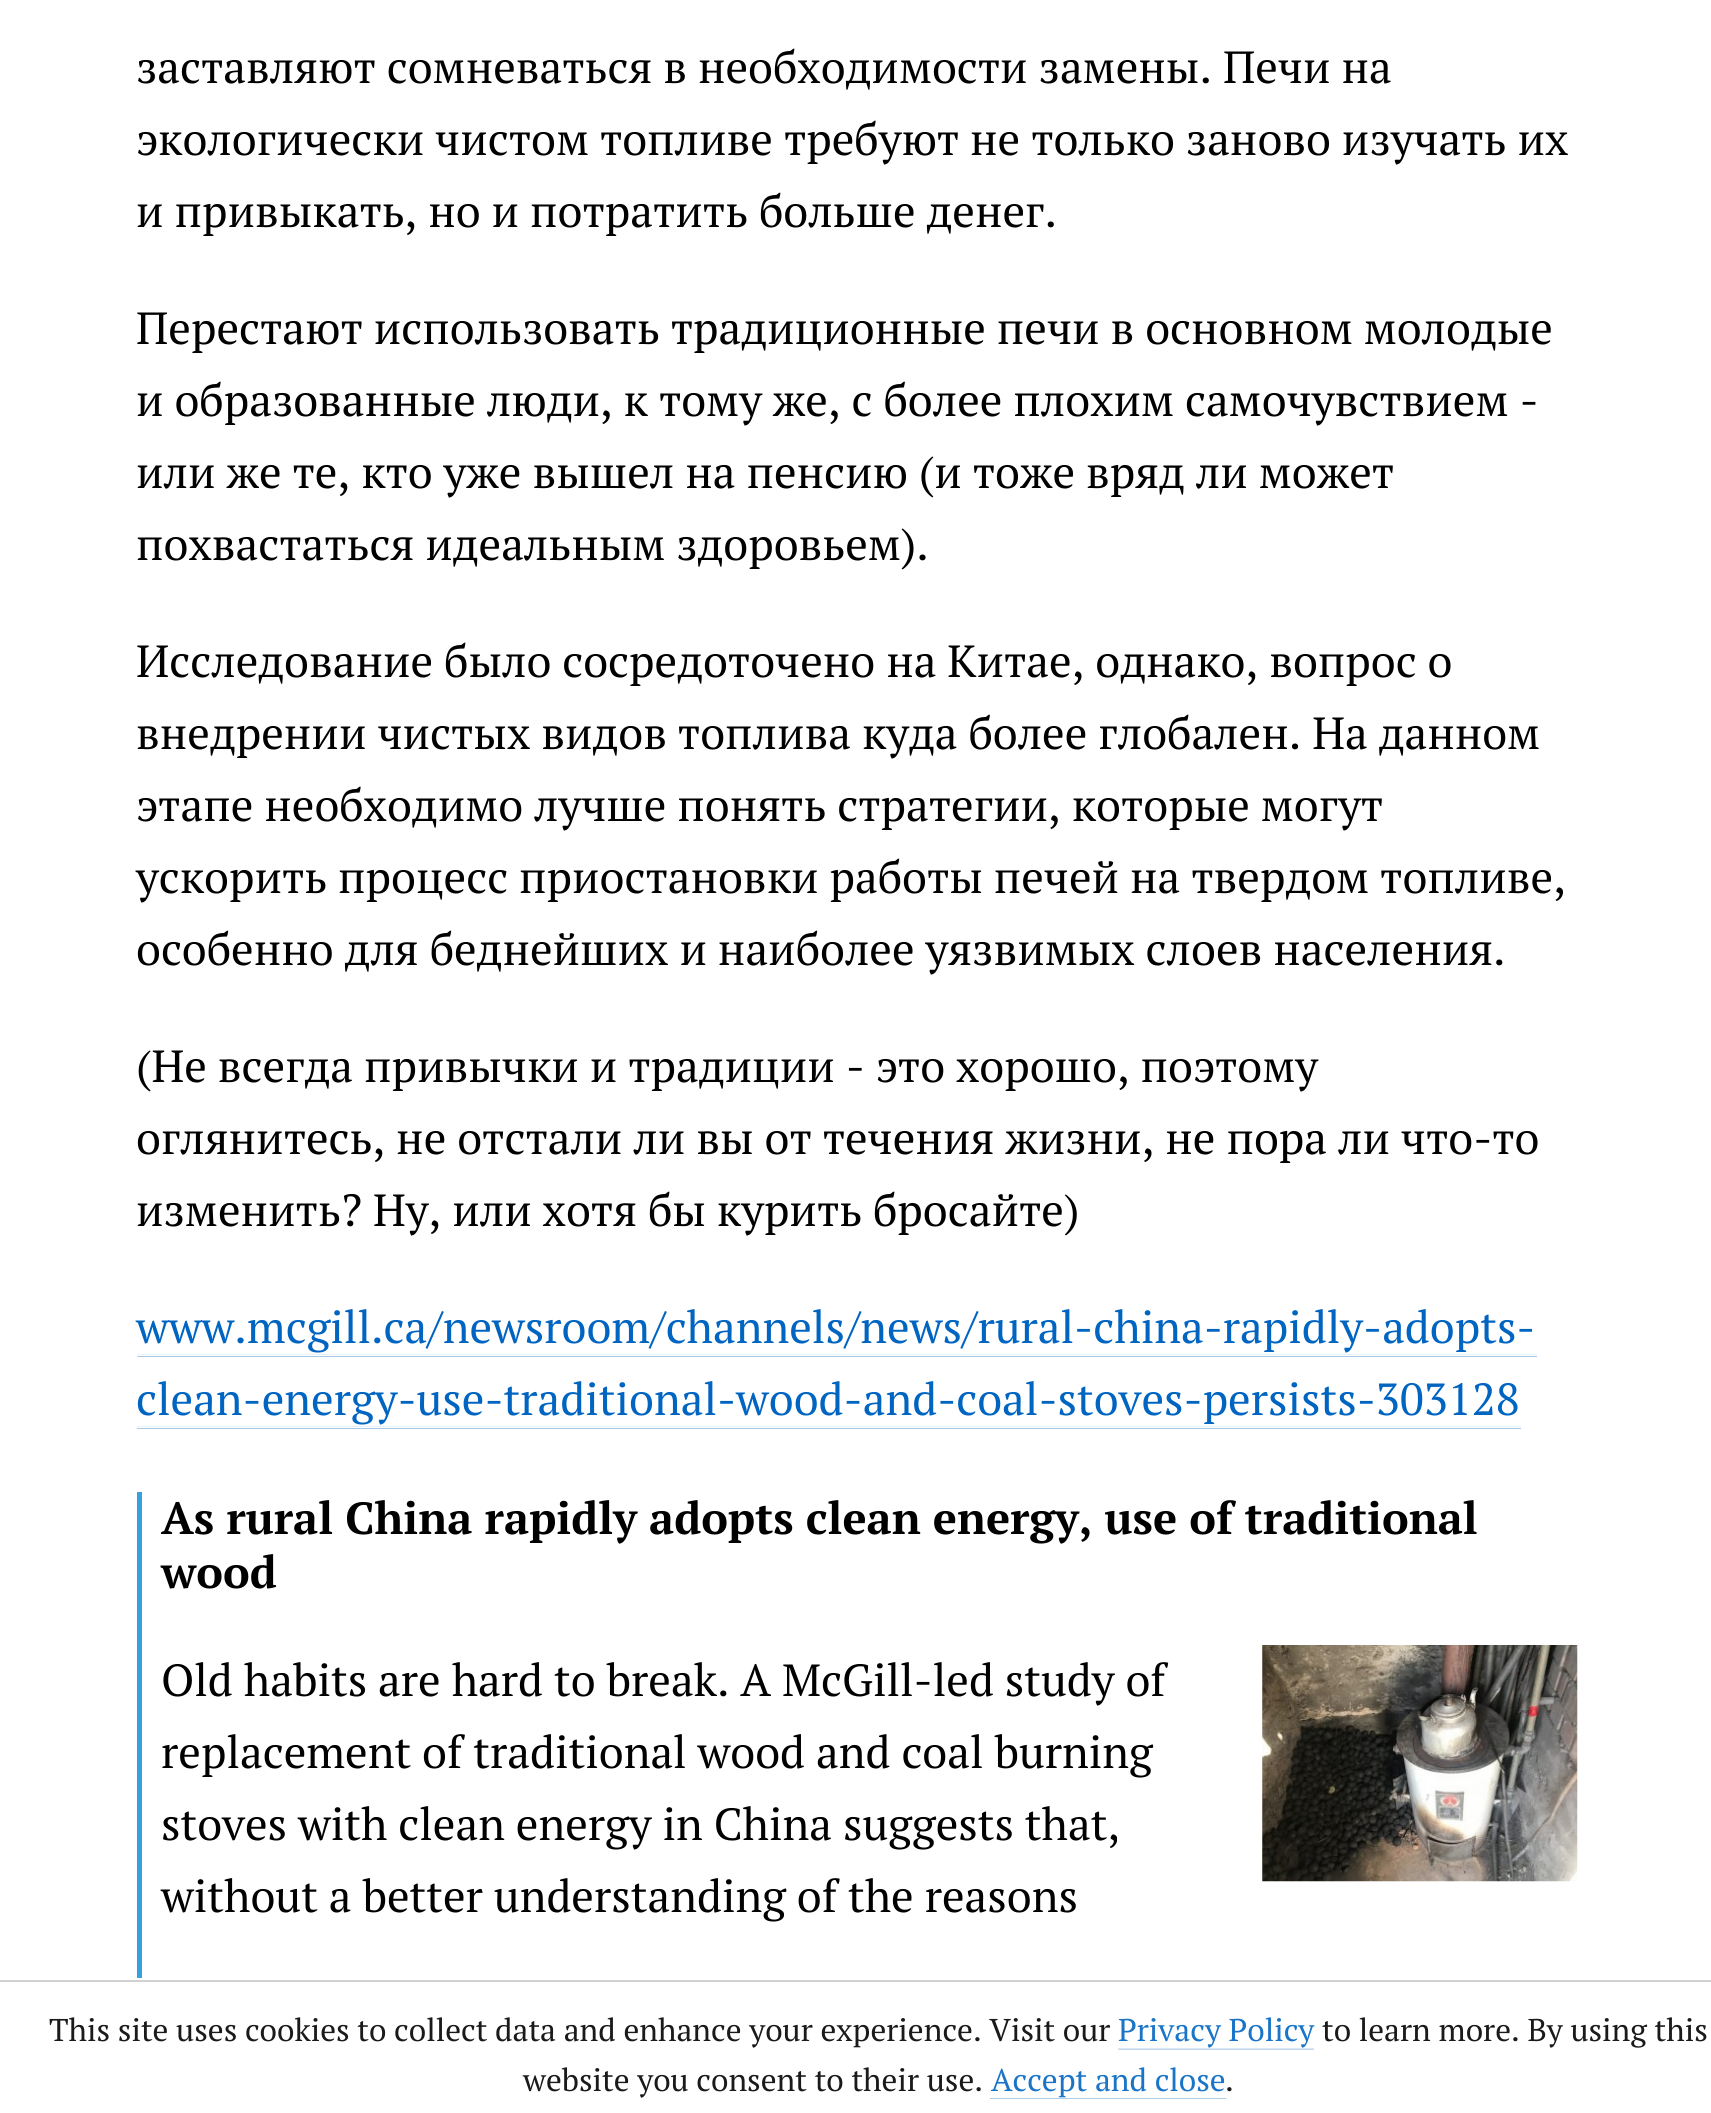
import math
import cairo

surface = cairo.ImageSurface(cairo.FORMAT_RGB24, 1711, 2113)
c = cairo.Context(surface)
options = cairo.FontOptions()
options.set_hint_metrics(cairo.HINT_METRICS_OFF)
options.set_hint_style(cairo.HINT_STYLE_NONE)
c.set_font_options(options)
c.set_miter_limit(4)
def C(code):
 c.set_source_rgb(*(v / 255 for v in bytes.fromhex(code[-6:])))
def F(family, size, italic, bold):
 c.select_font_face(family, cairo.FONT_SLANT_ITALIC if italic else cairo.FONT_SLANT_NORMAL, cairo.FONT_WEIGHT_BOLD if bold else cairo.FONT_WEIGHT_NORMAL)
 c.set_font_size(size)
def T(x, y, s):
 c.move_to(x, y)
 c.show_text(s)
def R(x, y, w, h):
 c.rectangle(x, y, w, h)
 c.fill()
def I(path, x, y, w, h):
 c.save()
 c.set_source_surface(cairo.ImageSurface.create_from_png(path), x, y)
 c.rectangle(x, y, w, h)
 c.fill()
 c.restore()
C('ffffff')
c.paint()
F('PT Serif',45,0,0)
C('000000')
T(136,83,'заставляют сомневаться в необходимости замены. Печи на')
T(136,155,'экологически чистом топливе требуют не только заново изучать их')
T(136,227,'и привыкать, но и потратить больше денег.')
T(136,344,'Перестают использовать традиционные печи в основном молодые')
T(136,416,'и образованные люди, к тому же, с более плохим самочувствием -')
T(136,488,'или же те, кто уже вышел на пенсию (и тоже вряд ли может')
T(136,560,'похвастаться идеальным здоровьем).')
T(136,677,'Исследование было сосредоточено на Китае, однако, вопрос о')
T(136,749,'внедрении чистых видов топлива куда более глобален. На данном')
T(136,821,'этапе необходимо лучше понять стратегии, которые могут')
T(136,893,'ускорить процесс приостановки работы печей на твердом топливе,')
T(136,965,'особенно для беднейших и наиболее уязвимых слоев населения.')
T(136,1082,'(Не всегда привычки и традиции - это хорошо, поэтому')
T(136,1154,'оглянитесь, не отстали ли вы от течения жизни, не пора ли что-то')
T(136,1226,'изменить? Ну, или хотя бы курить бросайте)')
C('0064c1')
T(136,1343,'www.mcgill.ca/newsroom/channels/news/rural-china-rapidly-adopts-')
I('1.png',137,1354,1400,75)
T(136,1415,'clean-energy-use-traditional-wood-and-coal-stoves-persists-303128')
C('37a1de')
R(137,1492,5,486)
F('PT Serif',45,0,1)
C('000000')
T(161,1534,'As rural China rapidly adopts clean energy, use of traditional')
T(161,1588,'wood')
F('PT Serif',45,0,0)
T(161,1696,'Old habits are hard to break. A McGill-led study of')
I('2.png',1262,1645,316,237)
T(161,1768,'replacement of traditional wood and coal burning')
T(161,1840,'stoves with clean energy in China suggests that,')
T(161,1912,'without a better understanding of the reasons')
C('d1d1d1')
R(0,1980,1711,2)
F('PT Serif',31.5,0,0)
C('1a1a1a')
T(49,2041,'This site uses cookies to collect data and enhance your experience. Visit our')
C('1a74c7')
T(1118,2041,'Privacy Policy')
C('1a1a1a')
T(1322,2041,'to learn more. By using this')
I('3.png',1118,2048,196,2)
T(523,2091,'website you consent to their use.')
C('1a74c7')
T(991,2091,'Accept and close')
C('1a1a1a')
T(1225,2091,'.')
I('4.png',990,2098,237,1)
surface.write_to_png('o.png')
